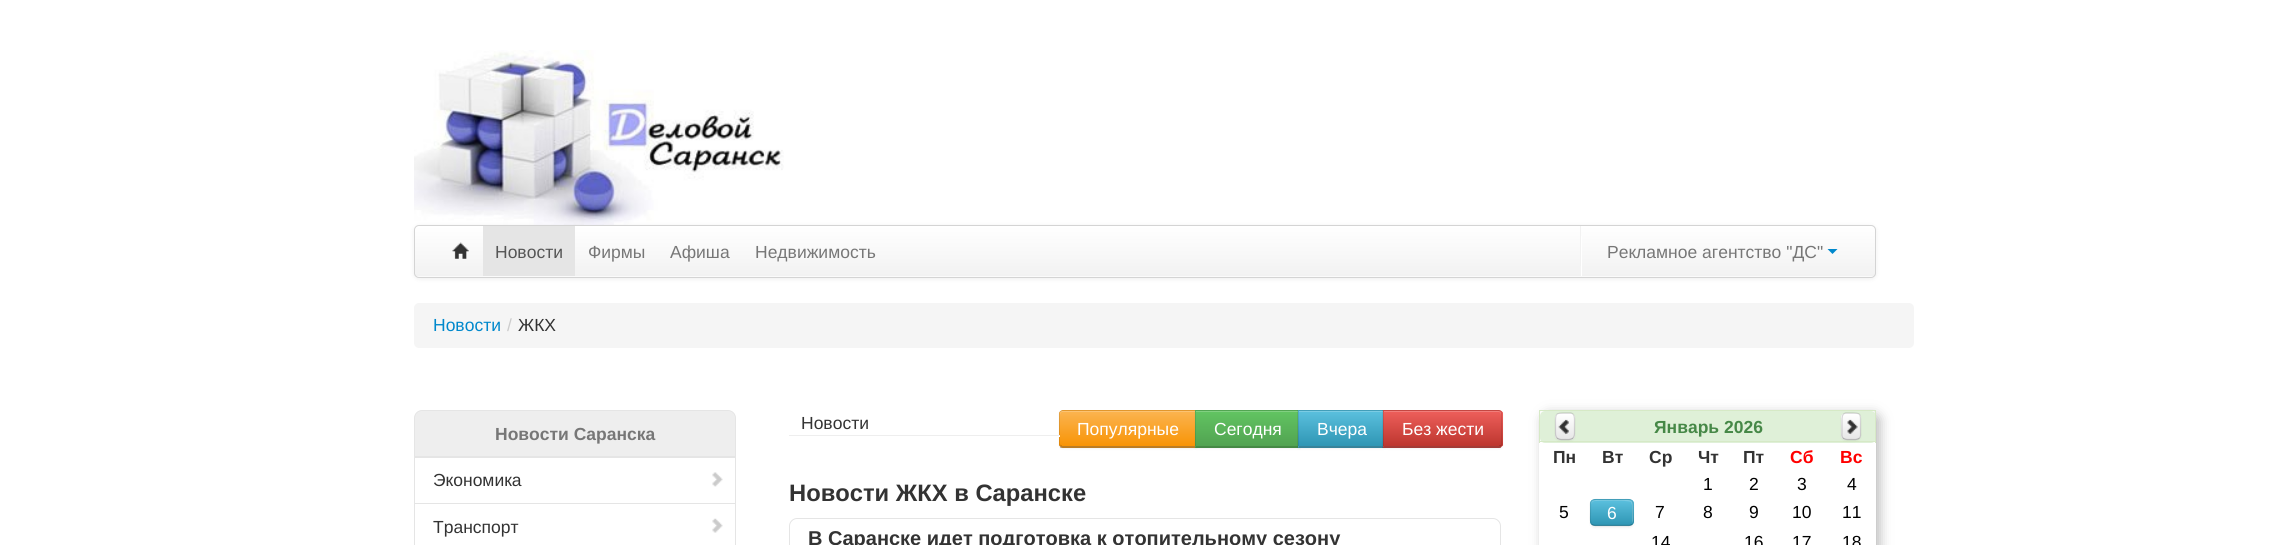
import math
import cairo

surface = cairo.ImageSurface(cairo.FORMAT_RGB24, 2290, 545)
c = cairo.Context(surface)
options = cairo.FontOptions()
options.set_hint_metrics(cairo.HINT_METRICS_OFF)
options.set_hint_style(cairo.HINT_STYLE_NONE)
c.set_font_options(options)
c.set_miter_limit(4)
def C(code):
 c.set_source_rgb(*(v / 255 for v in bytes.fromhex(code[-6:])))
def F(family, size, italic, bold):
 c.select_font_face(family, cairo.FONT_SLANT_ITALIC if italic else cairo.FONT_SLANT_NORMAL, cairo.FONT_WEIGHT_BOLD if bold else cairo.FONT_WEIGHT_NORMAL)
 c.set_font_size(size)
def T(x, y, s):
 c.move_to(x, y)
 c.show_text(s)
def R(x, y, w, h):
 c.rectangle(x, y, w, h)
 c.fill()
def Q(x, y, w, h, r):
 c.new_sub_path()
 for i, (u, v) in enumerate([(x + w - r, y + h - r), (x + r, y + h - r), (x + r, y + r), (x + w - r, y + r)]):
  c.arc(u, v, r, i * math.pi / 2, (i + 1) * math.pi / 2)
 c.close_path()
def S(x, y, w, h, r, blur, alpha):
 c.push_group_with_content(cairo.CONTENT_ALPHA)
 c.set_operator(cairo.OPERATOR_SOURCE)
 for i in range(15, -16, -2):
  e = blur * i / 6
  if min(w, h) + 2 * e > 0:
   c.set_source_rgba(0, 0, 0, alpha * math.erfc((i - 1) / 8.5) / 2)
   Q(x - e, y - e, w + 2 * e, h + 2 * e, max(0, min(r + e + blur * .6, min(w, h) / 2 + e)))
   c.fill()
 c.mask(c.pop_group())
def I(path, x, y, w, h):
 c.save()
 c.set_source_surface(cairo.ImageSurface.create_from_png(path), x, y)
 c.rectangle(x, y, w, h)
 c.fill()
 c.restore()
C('ffffff')
c.paint()
I('1.png',414,50,370,175)
C('000000')
S(414,226,1462,53,5,2.5,.07)
C('fafafa')
Q(414,225,1462,53,5)
c.fill()
c.save()
Q(414,225,1462,53,5)
c.clip()
gradient = cairo.LinearGradient(1145,226,1145,276)
gradient.add_color_stop_rgba(0,1,1,1,1)
gradient.add_color_stop_rgba(1,0.949,0.949,0.949,1)
c.set_source(gradient)
R(414,226,1462,50)
c.restore()
Q(414.5,225.5,1461,52,4.5)
C('d4d4d4')
c.set_line_width(1)
c.stroke()
I('2.png',452,242,17,17)
C('e5e5e5')
R(483,226,92,50)
F('Liberation Sans',17.5,0,0)
C('555555')
T(495,258,'Новости')
C('777777')
T(588,258,'Фирмы')
T(670,258,'Афиша')
T(755,258,'Недвижимость')
C('ffffff')
R(1581,236,1,40)
C('f2f2f2')
R(1580,226,1,40)
C('777777')
T(1607,258,'Рекламное агентство "ДС"')
C('0088cc')
c.new_path()
c.move_to(1827.5,249)
c.line_to(1837.5,249)
c.line_to(1832.5,254)
c.close_path()
c.fill()
C('f5f5f5')
Q(414,303,1500,45,5)
c.fill()
C('0088cc')
T(433,331,'Новости')
C('cccccc')
T(507,331,'/')
C('333333')
T(518,331,'ЖКХ')
C('eeeeee')
c.new_path()
c.move_to(422,410.5)
c.line_to(728,410.5)
c.curve_to(732,410.5,735.5,414,735.5,418)
c.line_to(735.5,457.5)
c.line_to(414.5,457.5)
c.line_to(414.5,418)
c.curve_to(414.5,414,418,410.5,422,410.5)
c.close_path()
c.fill_preserve()
C('e5e5e5')
c.stroke()
F('Liberation Sans',17.5,0,1)
C('777777')
T(495,440,'Новости Саранска')
c.rectangle(414.5,456.5,321,47)
C('e5e5e5')
c.stroke()
F('Liberation Sans',17.5,0,0)
C('333333')
T(433,486,'Экономика')
I('3.png',712,472,11,15)
c.rectangle(414.5,503.5,321,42)
C('e5e5e5')
c.stroke()
C('333333')
T(433,533,'Транспорт')
I('4.png',712,518,11,15)
T(801,429,'Новости')
C('000000')
S(1059,411,139,38,4,1,.05)
C('faa732')
c.new_path()
c.move_to(1063,410)
c.line_to(1198,410)
c.line_to(1198,448)
c.line_to(1063,448)
c.curve_to(1061,448,1059,446,1059,444)
c.line_to(1059,414)
c.curve_to(1059,412,1061,410,1063,410)
c.close_path()
c.fill()
c.save()
c.new_path()
c.move_to(1063,410)
c.line_to(1198,410)
c.line_to(1198,448)
c.line_to(1063,448)
c.curve_to(1061,448,1059,446,1059,444)
c.line_to(1059,414)
c.curve_to(1059,412,1061,410,1063,410)
c.close_path()
c.clip()
gradient = cairo.LinearGradient(1128,411,1128,446)
gradient.add_color_stop_rgba(0,0.984,0.706,0.314,1)
gradient.add_color_stop_rgba(1,0.973,0.58,0.024,1)
c.set_source(gradient)
R(1059,411,136,35)
c.restore()
C('fcc372')
c.new_path()
c.move_to(1062,412)
c.line_to(1196,412)
c.line_to(1196,411)
c.line_to(1062,411)
c.curve_to(1061,411,1060,412,1060,414)
c.line_to(1060,415)
c.curve_to(1060,414,1061,412,1062,412)
c.close_path()
c.fill()
c.set_source_rgba(0,0,0,0.1)
c.new_path()
c.move_to(1062,410)
c.line_to(1060,411)
c.line_to(1061,412)
c.line_to(1062,411)
c.line_to(1196,411)
c.line_to(1196,412)
c.line_to(1198,410)
c.close_path()
c.fill()
c.set_source_rgba(0,0,0,0.25)
c.new_path()
c.move_to(1198,448)
c.line_to(1060,448)
c.line_to(1060,447)
c.line_to(1061,445)
c.line_to(1062,446)
c.line_to(1196,446)
c.close_path()
c.fill()
c.set_source_rgba(0,0,0,0.1)
c.new_path()
c.move_to(1060,411)
c.curve_to(1059.5,412,1059,413,1059,414)
c.line_to(1059,444)
c.curve_to(1059,445,1059,446,1059.5,446.5)
c.line_to(1061,445.5)
c.line_to(1060,444)
c.line_to(1060,419)
c.curve_to(1060,418,1059.5,413.5,1060.5,412)
c.close_path()
c.fill()
C('ffffff')
T(1077,435,'Популярные')
C('000000')
S(1195,411,105,38,0,1,.05)
C('5bb75b')
R(1195,410,1,38)
gradient = cairo.LinearGradient(1248,411,1248,446)
gradient.add_color_stop_rgba(0,0.384,0.769,0.384,1)
gradient.add_color_stop_rgba(1,0.318,0.639,0.318,1)
c.set_source(gradient)
R(1195,411,103,35)
C('81d081')
R(1196,411,103,1)
C('52a552')
c.new_path()
c.move_to(1195,410)
c.line_to(1300,410)
c.line_to(1299,411)
c.line_to(1196,411)
c.close_path()
c.fill()
C('448944')
c.new_path()
c.move_to(1300,448)
c.line_to(1195,448)
c.line_to(1196,446)
c.line_to(1299,446)
c.close_path()
c.fill()
c.set_source_rgba(0,0,0,0.1)
c.new_path()
c.move_to(1195,447.5)
c.line_to(1195,410)
c.line_to(1196,411)
c.line_to(1196,446)
c.close_path()
c.fill()
C('ffffff')
T(1214,435,'Сегодня')
C('000000')
S(1298,411,87,38,0,1,.05)
C('49afcd')
R(1298,410,1,38)
gradient = cairo.LinearGradient(1341,411,1341,446)
gradient.add_color_stop_rgba(0,0.357,0.753,0.871,1)
gradient.add_color_stop_rgba(1,0.184,0.588,0.706,1)
c.set_source(gradient)
R(1298,411,85,35)
C('7bcce4')
R(1299,411,85,1)
C('429eb9')
c.new_path()
c.move_to(1298,410)
c.line_to(1385,410)
c.line_to(1384,411)
c.line_to(1299,411)
c.close_path()
c.fill()
C('37839a')
c.new_path()
c.move_to(1385,448)
c.line_to(1298,448)
c.line_to(1299,446)
c.line_to(1384,446)
c.close_path()
c.fill()
c.set_source_rgba(0,0,0,0.1)
c.new_path()
c.move_to(1297.5,447.5)
c.line_to(1297.5,410)
c.line_to(1299,411)
c.line_to(1299,446)
c.close_path()
c.fill()
C('ffffff')
T(1317,435,'Вчера')
C('000000')
S(1383,411,120,38,4,1,.05)
C('da4f49')
c.new_path()
c.move_to(1383,410)
c.line_to(1499,410)
c.curve_to(1501,410,1503,412,1503,414)
c.line_to(1503,444)
c.curve_to(1503,446,1501,448,1499,448)
c.line_to(1383,448)
c.close_path()
c.fill()
c.save()
c.new_path()
c.move_to(1383,410)
c.line_to(1499,410)
c.curve_to(1501,410,1503,412,1503,414)
c.line_to(1503,444)
c.curve_to(1503,446,1501,448,1499,448)
c.line_to(1383,448)
c.close_path()
c.clip()
gradient = cairo.LinearGradient(1443,411,1443,446)
gradient.add_color_stop_rgba(0,0.933,0.373,0.357,1)
gradient.add_color_stop_rgba(1,0.741,0.212,0.184,1)
c.set_source(gradient)
R(1383,411,120,35)
c.restore()
C('f17e7b')
c.new_path()
c.move_to(1384,412)
c.line_to(1499,412)
c.curve_to(1500,412,1501,414,1501,415)
c.line_to(1501,414)
c.curve_to(1501,412,1500,411,1498,411)
c.line_to(1384,411)
c.close_path()
c.fill()
c.set_source_rgba(0,0,0,0.1)
c.new_path()
c.move_to(1384,411)
c.line_to(1499,411)
c.line_to(1501,412)
c.line_to(1501,411)
c.line_to(1499,410)
c.line_to(1382,410)
c.line_to(1384,412)
c.close_path()
c.fill()
c.new_path()
c.move_to(1501,411)
c.curve_to(1502,412,1502,413,1502,414)
c.line_to(1502,444)
c.curve_to(1502,445,1502,445.5,1501.5,446.5)
c.line_to(1500.5,445.5)
c.line_to(1501,444)
c.line_to(1501,419)
c.curve_to(1501,418,1501.5,413.5,1500.5,412)
c.close_path()
c.fill()
c.set_source_rgba(0,0,0,0.25)
c.new_path()
c.move_to(1501,446)
c.line_to(1501,448)
c.line_to(1382,448)
c.line_to(1384,446)
c.line_to(1499,446)
c.line_to(1500,445)
c.close_path()
c.fill()
c.set_source_rgba(0,0,0,0.1)
c.new_path()
c.move_to(1382.5,447.5)
c.line_to(1384,446)
c.line_to(1384,411.5)
c.line_to(1382.5,410)
c.close_path()
c.fill()
C('ffffff')
T(1402,435,'Без жести')
C('eeeeee')
R(789,435,271,1)
C('ffffff')
R(1058,436,2,1)
F('Liberation Sans',23.75,0,1)
C('333333')
T(789,501,'Новости ЖКХ в Саранске')
c.new_path()
c.move_to(797,518.5)
c.line_to(1493,518.5)
c.curve_to(1497,518.5,1500.5,522,1500.5,526)
c.line_to(1500.5,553.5)
c.line_to(789.5,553.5)
c.line_to(789.5,526)
c.curve_to(789.5,522,793,518.5,797,518.5)
c.close_path()
C('e5e5e5')
c.stroke()
F('Liberation Sans',20,0,1)
C('333333')
T(808,545,'В Саранске идет подготовка к отопительному сезону')
C('bcbcbc')
S(1543,414,337,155,6,6,1)
C('ffffff')
Q(1539,410,337,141,6)
c.fill()
C('dff0d8')
Q(1540,411,336,32,5)
c.fill()
C('d6e9c6')
R(1539,410,337,1)
R(1875,410,1,33)
R(1539,441,337,1)
R(1539,410,1,33)
C('000000')
S(1555,414,20,27,5,1,.05)
C('f5f5f5')
Q(1555,413,20,27,5)
c.fill()
c.save()
Q(1555,413,20,27,5)
c.clip()
gradient = cairo.LinearGradient(1565,414,1565,439)
gradient.add_color_stop_rgba(0,1,1,1,1)
gradient.add_color_stop_rgba(1,0.902,0.902,0.902,1)
c.set_source(gradient)
R(1555,414,20,25)
c.restore()
c.new_path()
c.move_to(1573,438)
c.curve_to(1571,440,1567.5,439.5,1565,439.5)
c.curve_to(1562.5,439.5,1559,440,1557,438)
c.set_source_rgba(0,0,0,0.25)
c.set_line_width(1.2)
c.stroke()
c.new_path()
c.move_to(1557,438)
c.curve_to(1555.5,436.5,1555.5,434,1555.5,432)
c.line_to(1555.5,423.5)
c.curve_to(1555.5,413.5,1555.5,413,1565,413)
c.line_to(1571,413)
c.curve_to(1574.5,414,1574.5,417.5,1574.5,420.5)
c.line_to(1574.5,432)
c.curve_to(1574.5,434,1574.5,436.5,1573,438)
c.set_source_rgba(0,0,0,0.15)
c.stroke()
I('5.png',1558,419,11,16)
F('Liberation Sans',17.5,0,1)
C('468847')
T(1654,433,'Январь 2026')
C('000000')
S(1841,414,20,27,5,1,.05)
C('f5f5f5')
Q(1841,413,20,27,5)
c.fill()
c.save()
Q(1841,413,20,27,5)
c.clip()
gradient = cairo.LinearGradient(1851,414,1851,439)
gradient.add_color_stop_rgba(0,1,1,1,1)
gradient.add_color_stop_rgba(1,0.902,0.902,0.902,1)
c.set_source(gradient)
R(1841,414,20,25)
c.restore()
c.new_path()
c.move_to(1859.5,438)
c.curve_to(1857.5,440,1854,439.5,1851,439.5)
c.curve_to(1848.5,439.5,1845,440,1843,438)
c.set_source_rgba(0,0,0,0.25)
c.stroke()
c.new_path()
c.move_to(1843,438)
c.curve_to(1841.5,436.5,1842,434,1842,432)
c.line_to(1842,420.5)
c.curve_to(1842,417.5,1842,414,1845.5,413)
c.line_to(1851,413)
c.curve_to(1861,413,1860.5,413.5,1860.5,423.5)
c.line_to(1860.5,432)
c.curve_to(1860.5,434,1861,436.5,1859.5,438)
c.set_source_rgba(0,0,0,0.15)
c.stroke()
I('6.png',1847,419,11,16)
C('333333')
T(1553,463,'Пн')
T(1602,463,'Вт')
T(1649,463,'Ср')
T(1698,463,'Чт')
T(1743,463,'Пт')
C('ff0000')
T(1790,463,'Сб')
T(1840,463,'Вс')
F('Liberation Sans',17.5,0,0)
C('000000')
T(1703,490,'1')
T(1749,490,'2')
T(1797,490,'3')
T(1847,490,'4')
T(1559,518,'5')
C('000000')
S(1590,500,44,28,5,1,.05)
C('49afcd')
Q(1590,499,44,27,5)
c.fill()
c.save()
Q(1590,499,44,27,5)
c.clip()
gradient = cairo.LinearGradient(1612,500,1612,525)
gradient.add_color_stop_rgba(0,0.357,0.753,0.871,1)
gradient.add_color_stop_rgba(1,0.184,0.588,0.706,1)
c.set_source(gradient)
R(1590,500,44,25)
c.restore()
c.set_source_rgba(1,1,1,0.2)
c.new_path()
c.move_to(1595,501)
c.curve_to(1600,501,1628,500,1631,502)
c.line_to(1632,505)
c.line_to(1632,523)
c.curve_to(1634,521,1633,515,1633,512)
c.curve_to(1633,498,1633,500,1618,500)
c.line_to(1601,500)
c.curve_to(1596,500,1591,499,1591,505)
c.curve_to(1591,503,1593,501,1595,501)
c.close_path()
c.fill()
c.new_path()
c.move_to(1632,524.5)
c.curve_to(1631,525,1630,525.5,1629,525.5)
c.line_to(1595,525.5)
c.curve_to(1594,525.5,1592.5,525,1592,524.5)
c.set_source_rgba(0,0,0,0.25)
c.stroke()
c.new_path()
c.move_to(1592,524.5)
c.curve_to(1589.5,522,1590.5,515.5,1590.5,512.5)
c.line_to(1590.5,503)
c.curve_to(1591.5,498.5,1597.5,499.5,1600.5,499.5)
c.line_to(1623,499.5)
c.curve_to(1626.5,499.5,1632,498.5,1633,503)
c.line_to(1633,512.5)
c.curve_to(1633,515.5,1634.5,522,1632,524.5)
c.set_source_rgba(0,0,0,0.1)
c.stroke()
C('ffffff')
T(1607,519,'6')
C('000000')
T(1655,518,'7')
T(1703,518,'8')
T(1749,518,'9')
T(1792,518,'10')
T(1842,518,'11')
T(1651,548,'14')
T(1744,548,'16')
T(1792,548,'17')
T(1842,548,'18')
surface.write_to_png('o.png')
